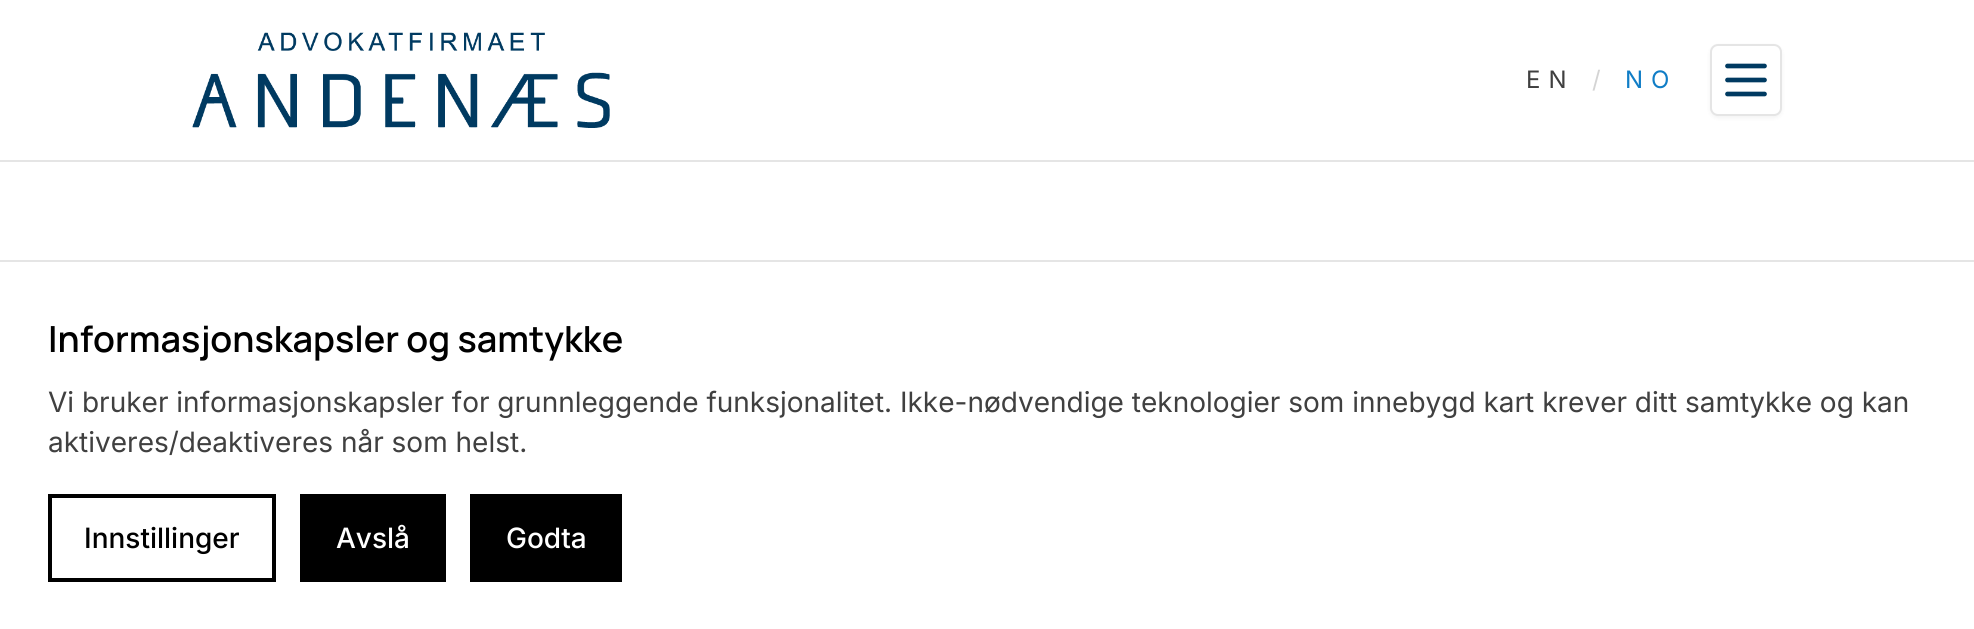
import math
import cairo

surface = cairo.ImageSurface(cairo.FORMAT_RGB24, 1974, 629)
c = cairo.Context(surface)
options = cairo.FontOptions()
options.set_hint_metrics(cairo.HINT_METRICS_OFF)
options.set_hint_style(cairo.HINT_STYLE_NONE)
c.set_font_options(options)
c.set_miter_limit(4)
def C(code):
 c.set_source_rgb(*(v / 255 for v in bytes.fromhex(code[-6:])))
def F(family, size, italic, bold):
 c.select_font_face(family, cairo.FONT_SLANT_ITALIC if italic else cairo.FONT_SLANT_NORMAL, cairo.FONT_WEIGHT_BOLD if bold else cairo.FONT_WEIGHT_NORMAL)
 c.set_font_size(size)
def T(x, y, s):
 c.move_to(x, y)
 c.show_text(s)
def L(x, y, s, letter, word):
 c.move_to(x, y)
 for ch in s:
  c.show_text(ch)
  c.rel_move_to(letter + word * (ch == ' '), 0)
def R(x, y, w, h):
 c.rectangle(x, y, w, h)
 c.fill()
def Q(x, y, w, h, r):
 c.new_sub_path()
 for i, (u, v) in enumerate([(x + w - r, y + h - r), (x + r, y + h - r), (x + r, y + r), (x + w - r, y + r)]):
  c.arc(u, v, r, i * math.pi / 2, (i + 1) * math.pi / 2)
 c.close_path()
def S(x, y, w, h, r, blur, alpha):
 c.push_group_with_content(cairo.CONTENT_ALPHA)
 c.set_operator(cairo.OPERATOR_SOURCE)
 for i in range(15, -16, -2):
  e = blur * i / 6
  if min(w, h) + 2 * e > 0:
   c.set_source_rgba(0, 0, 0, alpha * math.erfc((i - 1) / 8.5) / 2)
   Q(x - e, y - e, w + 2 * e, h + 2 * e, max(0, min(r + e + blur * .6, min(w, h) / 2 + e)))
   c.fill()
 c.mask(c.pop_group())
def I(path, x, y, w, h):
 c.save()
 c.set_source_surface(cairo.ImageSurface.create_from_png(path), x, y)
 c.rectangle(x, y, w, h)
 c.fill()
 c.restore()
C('ffffff')
c.paint()
C('e5e5e5')
R(0,160,1974,2)
I('1.png',192,32,418,96)
F('Inter',24,0,0)
C('404040')
L(1526,88,'EN',8,0)
C('d4d4d4')
L(1592,88,'/',8,0)
C('107dc6')
L(1625,88,'NO',8,0)
C('000000')
S(1710,46,72,72,8,2,.05)
C('ffffff')
Q(1711,45,70,70,7)
c.fill_preserve()
C('e5e5e5')
c.stroke()
c.new_path()
c.move_to(1727.5,80)
c.line_to(1764.5,80)
c.move_to(1727.5,66)
c.line_to(1764.5,66)
c.move_to(1727.5,94)
c.line_to(1764.5,94)
C('003a61')
c.set_line_width(4.7)
c.set_line_cap(cairo.LINE_CAP_ROUND)
c.set_line_join(cairo.LINE_JOIN_ROUND)
c.stroke()
C('e5e5e5')
R(0,260,1974,2)
F('Manrope SemiBold',36,0,0)
C('000000')
T(48,352,'Informasjonskapsler og samtykke')
F('Inter',28,0,0)
C('404040')
T(48,412,'Vi bruker informasjonskapsler for grunnleggende funksjonalitet. Ikke-nødvendige teknologier som innebygd kart krever ditt samtykke og kan')
T(48,452,'aktiveres/deaktiveres når som helst.')
c.rectangle(50,496,224,84)
C('000000')
c.set_line_width(4)
c.set_line_cap(cairo.LINE_CAP_BUTT)
c.set_line_join(cairo.LINE_JOIN_MITER)
c.stroke()
F('Inter Medium',28,0,0)
T(84,548,'Innstillinger')
R(300,494,146,88)
C('ffffff')
T(336,548,'Avslå')
C('000000')
R(470,494,152,88)
C('ffffff')
T(506,548,'Godta')
surface.write_to_png('o.png')
